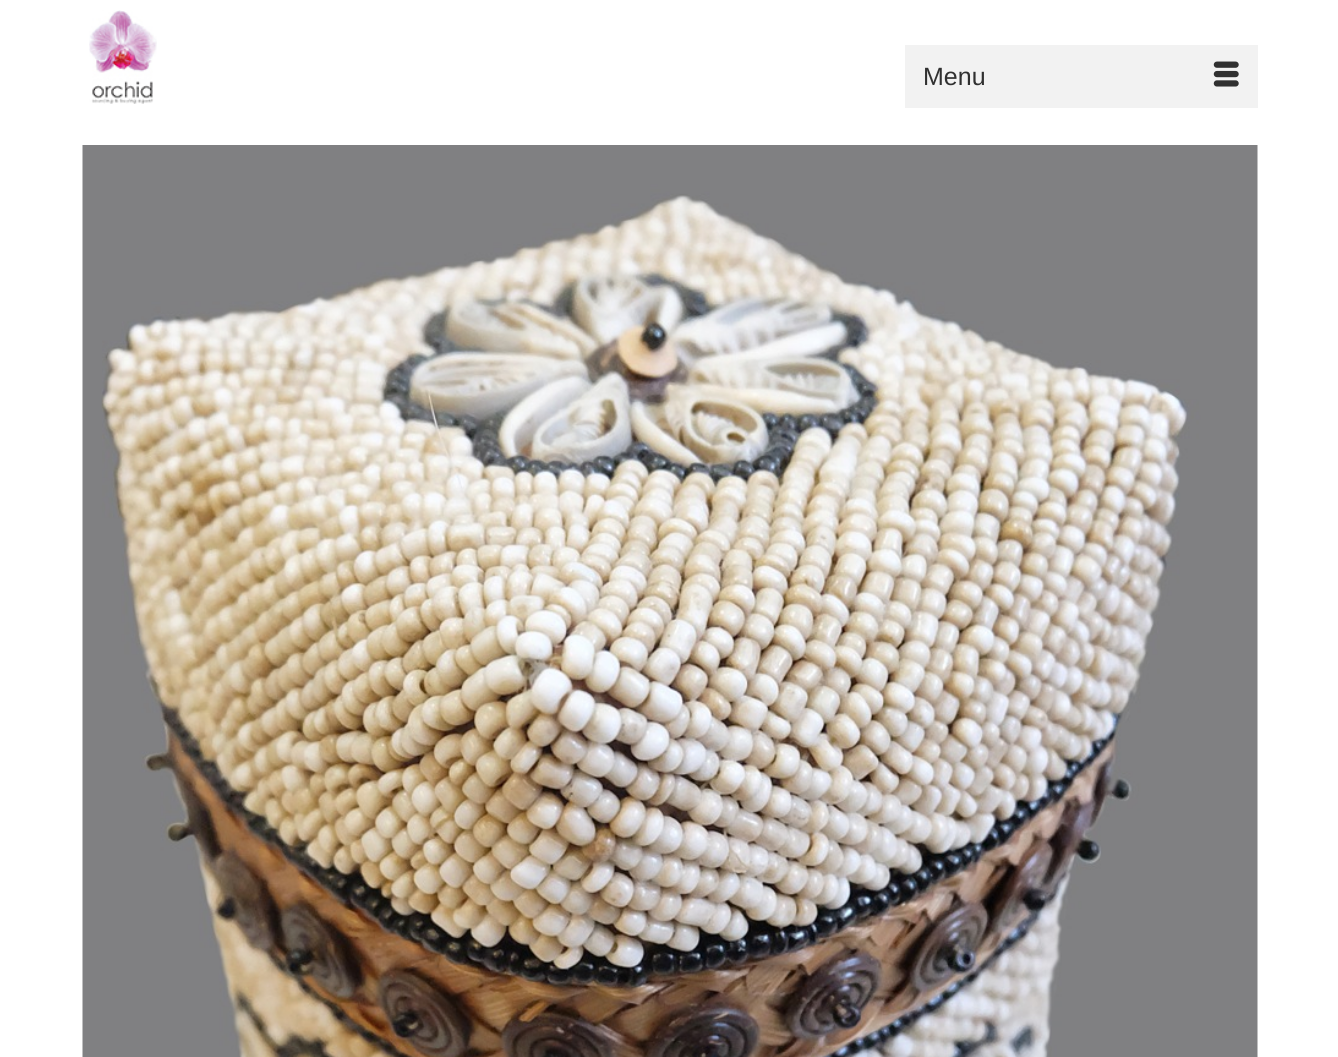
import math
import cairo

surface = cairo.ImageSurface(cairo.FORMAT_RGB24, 1338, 1057)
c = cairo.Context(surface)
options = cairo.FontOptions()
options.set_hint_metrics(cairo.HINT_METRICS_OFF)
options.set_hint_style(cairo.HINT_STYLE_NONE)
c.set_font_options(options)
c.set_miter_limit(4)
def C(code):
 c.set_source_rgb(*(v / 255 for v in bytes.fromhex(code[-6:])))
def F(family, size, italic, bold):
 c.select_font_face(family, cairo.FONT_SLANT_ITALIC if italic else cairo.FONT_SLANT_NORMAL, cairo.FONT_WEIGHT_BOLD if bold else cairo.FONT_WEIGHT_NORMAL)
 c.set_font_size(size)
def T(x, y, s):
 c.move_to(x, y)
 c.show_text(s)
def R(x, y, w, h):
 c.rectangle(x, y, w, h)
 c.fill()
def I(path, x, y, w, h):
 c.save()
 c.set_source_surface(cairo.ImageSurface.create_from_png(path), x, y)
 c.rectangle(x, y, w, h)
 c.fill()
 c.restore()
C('ffffff')
c.paint()
I('1.png',89,10,68,94)
C('f2f2f2')
R(905,45,353,63)
F('Liberation Sans',25,0,0)
C('303030')
T(923,85,'Menu')
I('2.png',1213,61,26,26)
I('3.png',82,145,1176,912)
surface.write_to_png('o.png')
